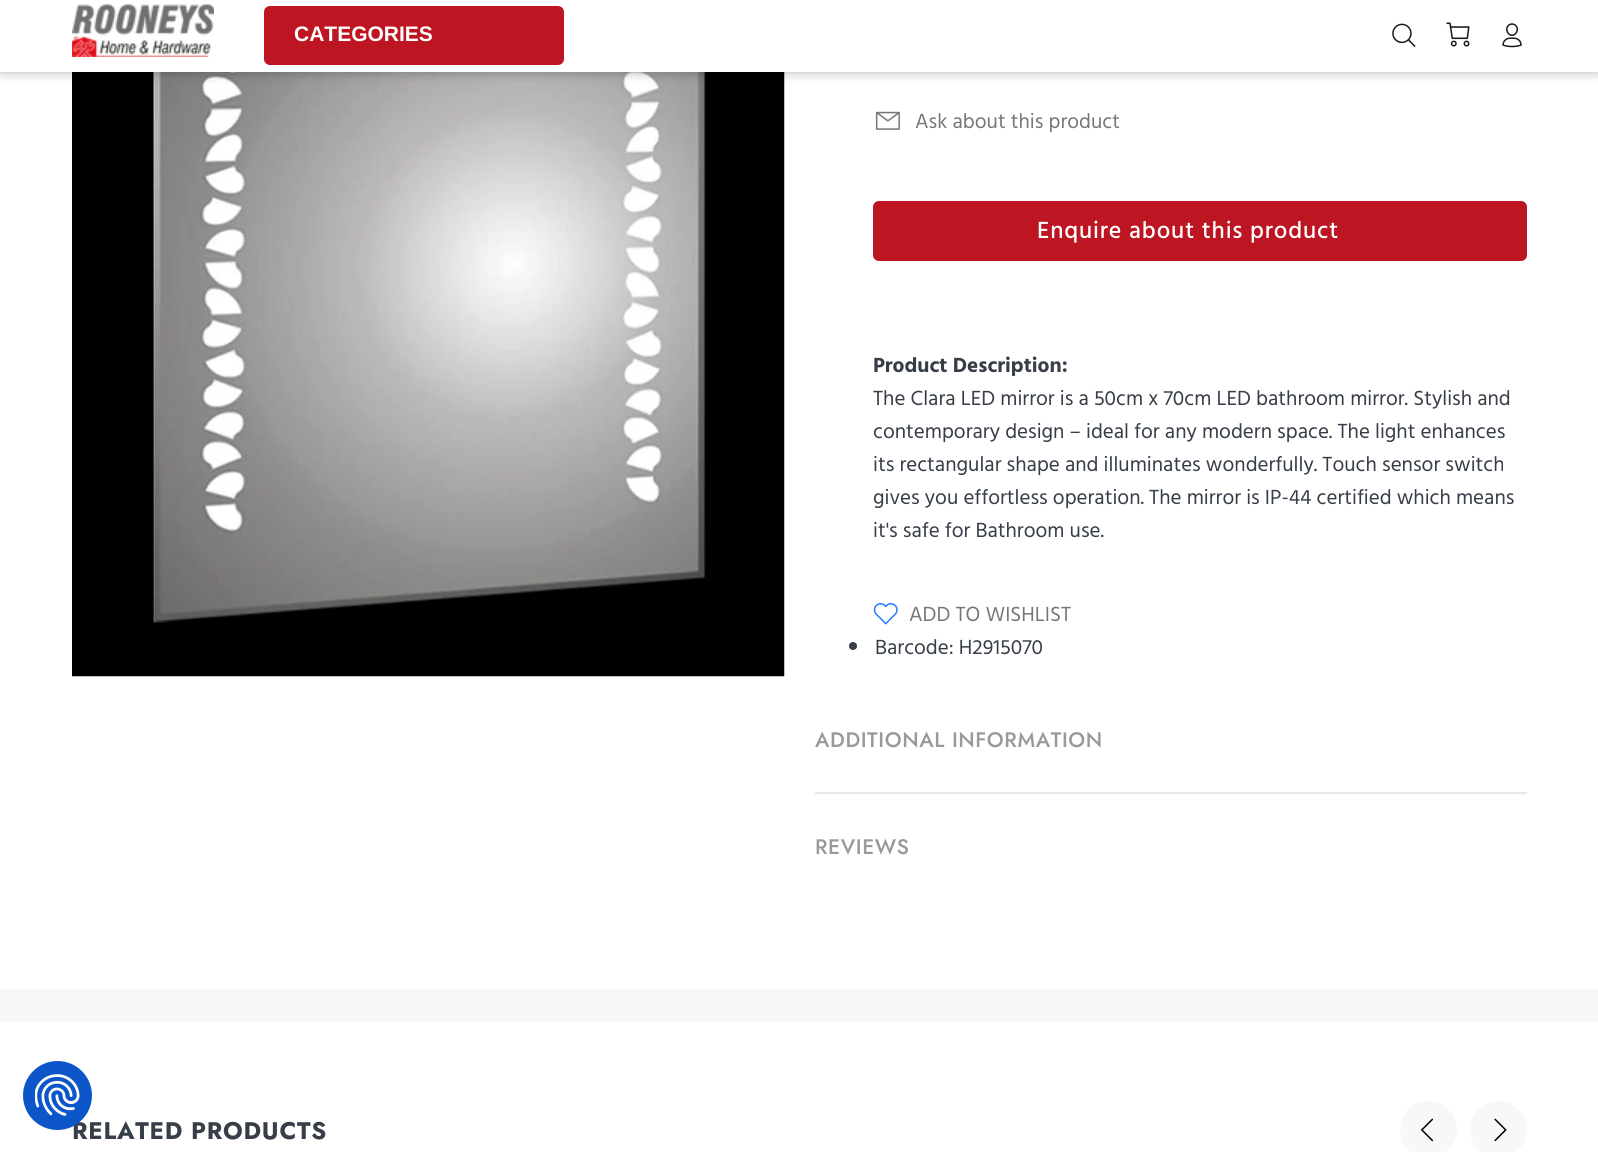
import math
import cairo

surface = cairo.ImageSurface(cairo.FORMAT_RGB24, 1598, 1152)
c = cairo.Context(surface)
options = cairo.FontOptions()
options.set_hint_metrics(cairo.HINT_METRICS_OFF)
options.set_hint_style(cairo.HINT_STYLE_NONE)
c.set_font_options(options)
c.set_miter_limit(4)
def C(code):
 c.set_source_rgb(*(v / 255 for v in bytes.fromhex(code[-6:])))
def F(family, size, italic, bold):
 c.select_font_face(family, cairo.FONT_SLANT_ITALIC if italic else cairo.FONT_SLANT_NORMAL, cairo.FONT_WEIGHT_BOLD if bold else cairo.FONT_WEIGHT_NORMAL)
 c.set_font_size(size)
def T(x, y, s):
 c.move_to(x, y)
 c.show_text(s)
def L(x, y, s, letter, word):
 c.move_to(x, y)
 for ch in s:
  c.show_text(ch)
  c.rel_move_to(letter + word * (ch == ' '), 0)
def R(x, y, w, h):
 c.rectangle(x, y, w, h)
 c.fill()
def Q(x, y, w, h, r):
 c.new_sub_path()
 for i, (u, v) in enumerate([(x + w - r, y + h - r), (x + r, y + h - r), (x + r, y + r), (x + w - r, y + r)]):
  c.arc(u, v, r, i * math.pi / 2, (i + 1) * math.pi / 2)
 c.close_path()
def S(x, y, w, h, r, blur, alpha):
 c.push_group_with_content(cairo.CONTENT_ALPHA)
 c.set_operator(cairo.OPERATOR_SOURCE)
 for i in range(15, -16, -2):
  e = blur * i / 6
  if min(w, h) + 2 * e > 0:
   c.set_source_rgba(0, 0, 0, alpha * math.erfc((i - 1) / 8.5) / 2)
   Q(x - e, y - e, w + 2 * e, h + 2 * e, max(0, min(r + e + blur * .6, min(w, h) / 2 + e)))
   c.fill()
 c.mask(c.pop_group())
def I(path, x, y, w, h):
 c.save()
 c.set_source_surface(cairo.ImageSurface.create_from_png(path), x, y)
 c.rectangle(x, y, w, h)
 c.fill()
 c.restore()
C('ffffff')
c.paint()
I('6.png',72,72,713,605)
C('000000')
S(0,0,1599,72,0,6,.3)
C('ffffff')
R(0,0,1598,72)
I('1.png',72,4,142,53)
C('be1522')
Q(264,6,300,59,6)
c.fill()
F('Liberation Sans',21,0,1)
C('ffffff')
T(294,41,'CATEGORIES')
I('2.png',1392,23,24,24)
I('3.png',1446,22,24,25)
I('4.png',1502,23,20,25)
F('Jost',24,0,1)
C('373e48')
L(72,1139,'RELATED PRODUCTS',.75,0)
C('0d56c9')
c.new_path()
c.arc(57.5,1095.5,33.5,0,2 * math.pi)
c.fill_preserve()
c.stroke()
I('5.png',35,1074,45,42)
I('7.png',875,111,25,19)
F('Hind',21,0,0)
C('777777')
T(915,128,'Ask about this product')
C('be1522')
Q(873,201,654,60,6)
c.fill()
F('Hind Medium',24,0,0)
C('ffffff')
L(1037,238,'Enquire about this product',.85,0)
F('Hind',21,0,1)
C('373e48')
T(873,372,'Product Description:')
F('Hind',21,0,0)
T(873,405,'The Clara LED mirror is a 50cm x 70cm LED bathroom mirror. Stylish and')
T(873,438,'contemporary design – ideal for any modern space. The light enhances')
T(873,471,'its rectangular shape and illuminates wonderfully. Touch sensor switch')
T(873,504,'gives you effortless operation. The mirror is IP-44 certified which means')
T(873,537,'it\'s safe for Bathroom use.')
I('8.png',873,603,25,22)
C('777777')
T(909,621,'ADD TO WISHLIST')
C('373e48')
c.new_path()
c.arc(853,646,4,0,2 * math.pi)
c.fill()
T(875,654,'Barcode: H2915070')
C('e9e7e7')
R(815,792,712,2)
F('Jost Medium',21,0,0)
C('999999')
L(815,747,'ADDITIONAL INFORMATION',.6,0)
L(815,854,'REVIEWS',.6,0)
C('f7f8fa')
R(0,989,1598,33)
c.new_path()
c.arc(1428.5,1129.5,28.5,0,2 * math.pi)
c.fill()
I('9.png',1421,1118,13,24)
c.arc(1498.5,1129.5,28.5,0,2 * math.pi)
c.fill()
I('10.png',1494,1118,13,24)
surface.write_to_png('o.png')
